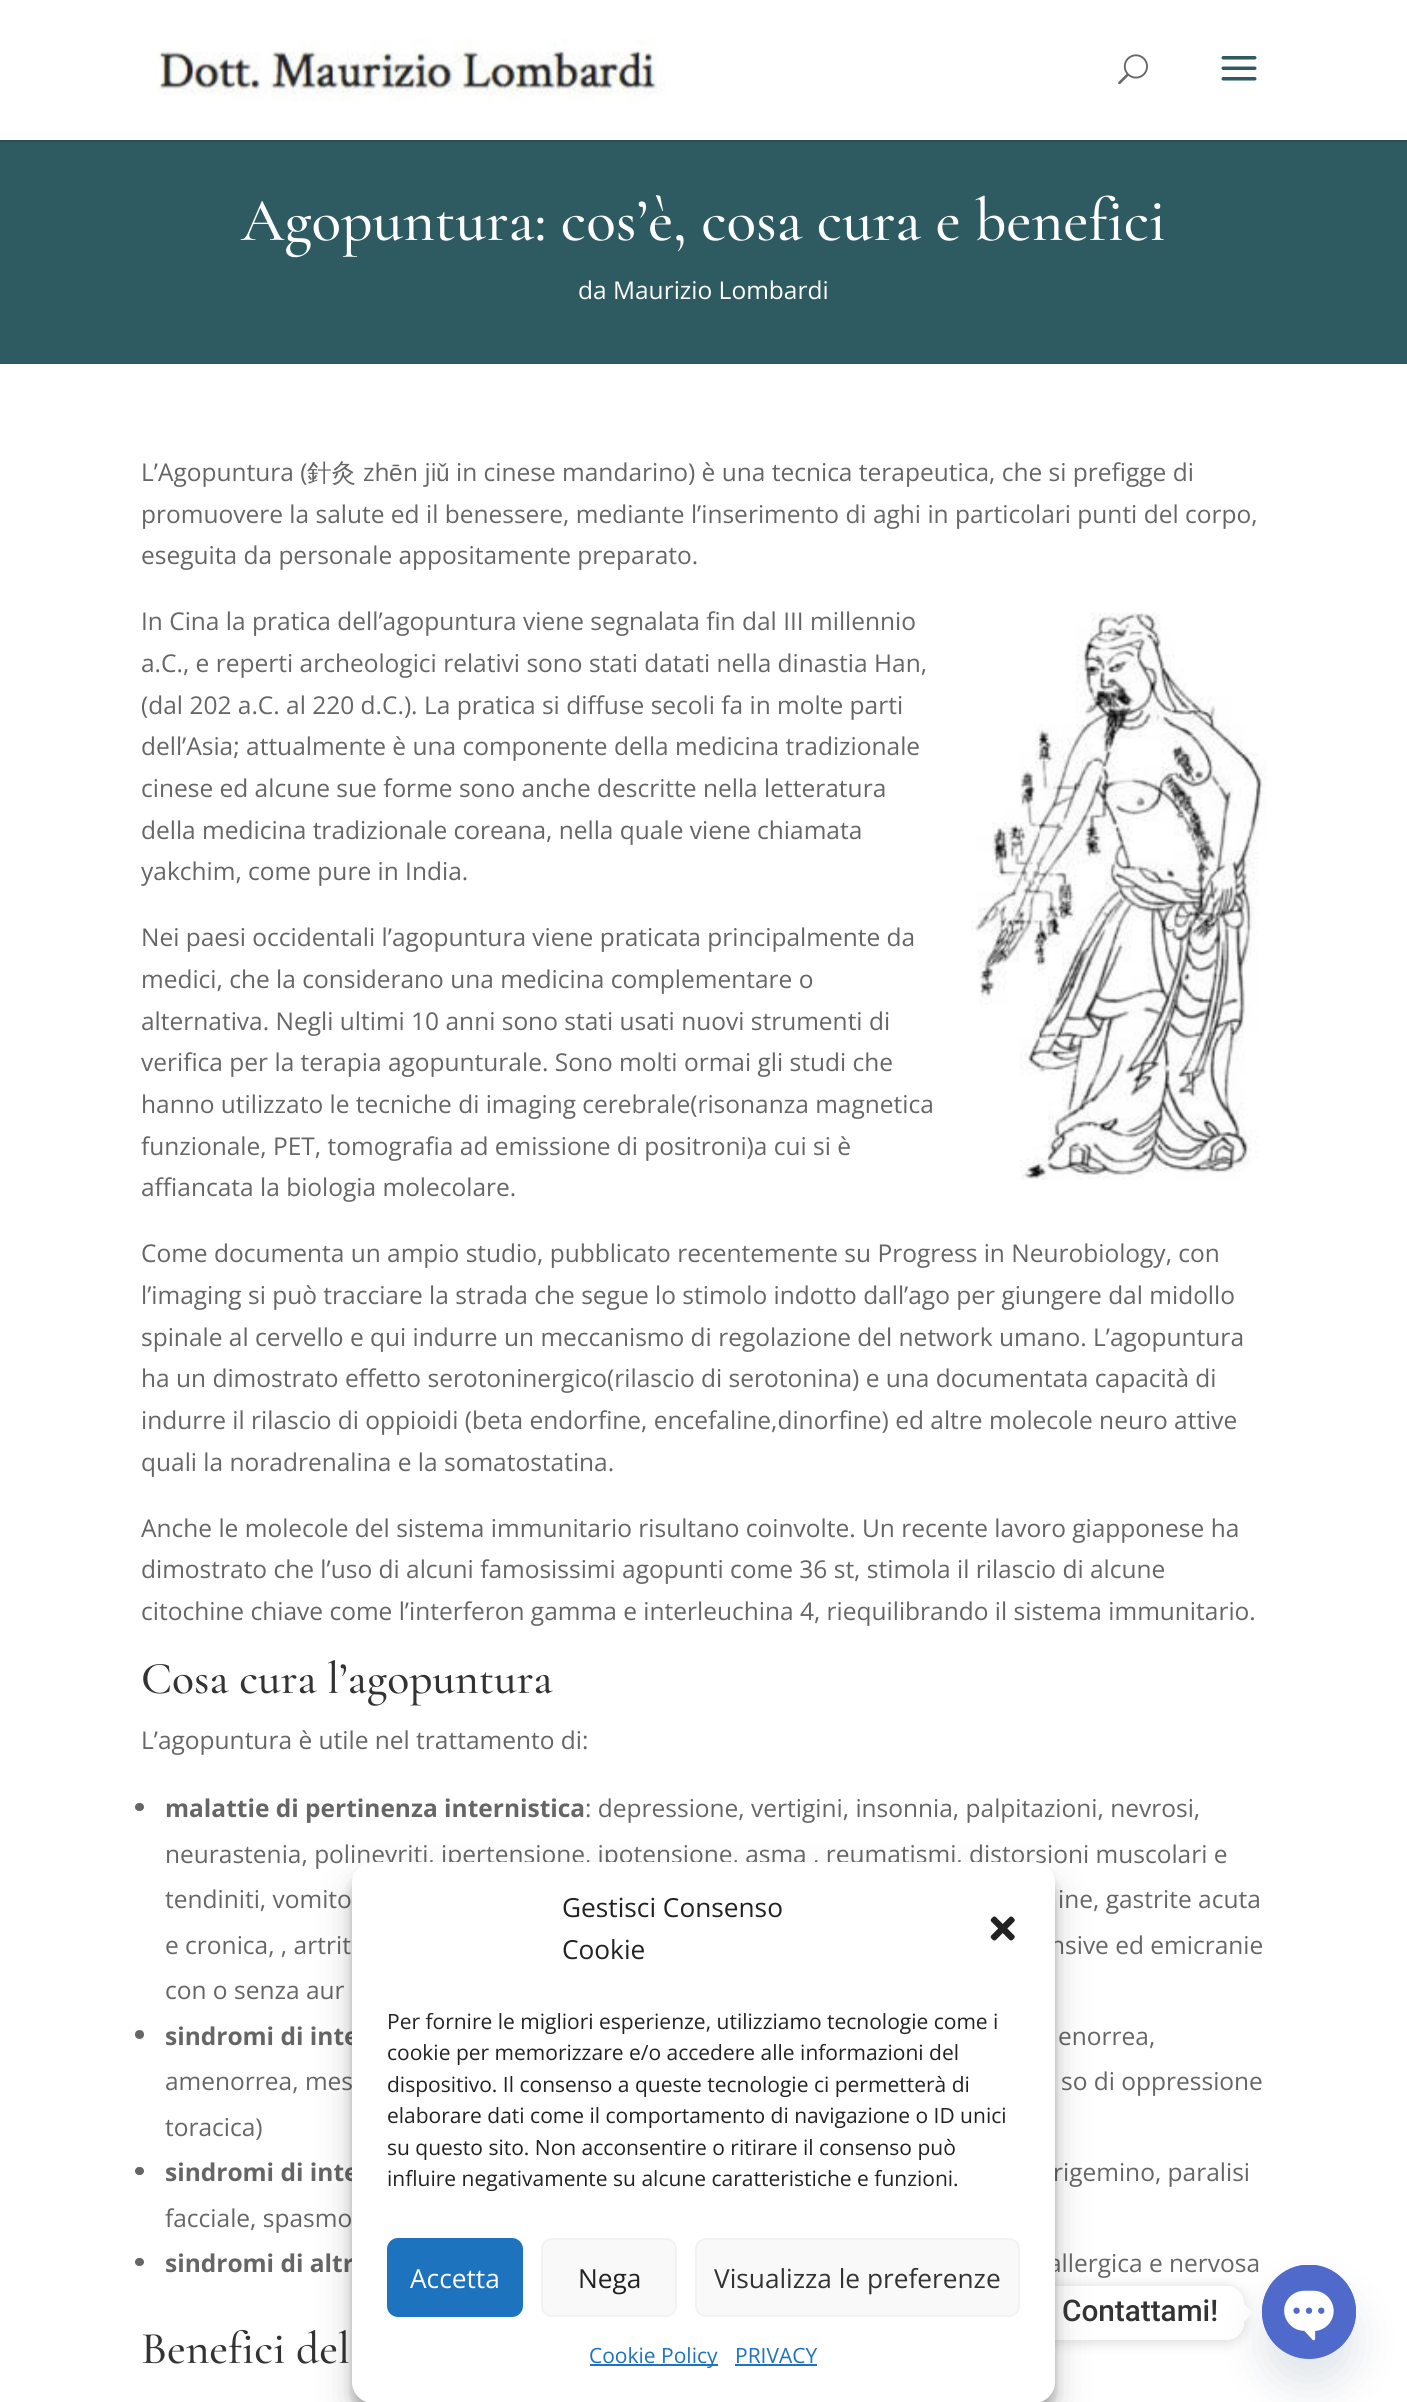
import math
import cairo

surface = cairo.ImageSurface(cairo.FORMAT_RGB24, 1407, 2402)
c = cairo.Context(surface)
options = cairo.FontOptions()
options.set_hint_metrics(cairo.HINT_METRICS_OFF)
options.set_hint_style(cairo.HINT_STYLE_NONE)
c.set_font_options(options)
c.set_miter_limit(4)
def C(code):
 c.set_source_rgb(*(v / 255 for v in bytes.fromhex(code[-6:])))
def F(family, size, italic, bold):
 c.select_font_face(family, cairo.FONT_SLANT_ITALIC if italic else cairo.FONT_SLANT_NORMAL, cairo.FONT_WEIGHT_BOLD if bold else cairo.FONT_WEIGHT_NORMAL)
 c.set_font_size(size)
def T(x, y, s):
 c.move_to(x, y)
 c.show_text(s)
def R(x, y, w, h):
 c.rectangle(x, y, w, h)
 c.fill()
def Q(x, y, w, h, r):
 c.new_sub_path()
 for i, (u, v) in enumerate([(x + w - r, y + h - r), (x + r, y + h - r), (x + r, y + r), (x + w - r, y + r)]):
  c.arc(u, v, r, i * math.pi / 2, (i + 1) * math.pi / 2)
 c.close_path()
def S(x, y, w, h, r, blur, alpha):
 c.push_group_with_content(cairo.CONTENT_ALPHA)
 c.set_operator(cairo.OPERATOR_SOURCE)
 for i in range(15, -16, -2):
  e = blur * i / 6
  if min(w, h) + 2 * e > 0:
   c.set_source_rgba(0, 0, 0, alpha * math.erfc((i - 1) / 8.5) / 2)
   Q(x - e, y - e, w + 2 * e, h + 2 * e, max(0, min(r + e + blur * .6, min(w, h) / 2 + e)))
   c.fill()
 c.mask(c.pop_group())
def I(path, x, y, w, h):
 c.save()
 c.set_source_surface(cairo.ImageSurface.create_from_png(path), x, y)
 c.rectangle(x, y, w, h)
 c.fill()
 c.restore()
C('ffffff')
c.paint()
C('295257')
R(0,140,1407,2)
I('1.png',156,39,509,63)
I('2.png',1118,54,30,31)
I('3.png',1221,56,36,25)
C('2e5b61')
R(0,142,1407,222)
F('Cormorant Garamond Medium',61.25,0,0)
C('ffffff')
T(241,240,'Agopuntura: cos’è, cosa cura e benefici')
F('Open Sans',24.5,0,0)
T(578,299,'da Maurizio Lombardi')
C('666666')
T(141,481,'L’Agopuntura (')
F('WenQuanYi Zen Hei Medium',24.5,0,0)
T(307,481,'針灸')
F('Open Sans',24.5,0,0)
T(363,481,'zh')
F('Liberation Sans',24.5,0,0)
T(389,481,'ē')
F('Open Sans',24.5,0,0)
T(403,481,'n ji')
F('Liberation Sans',24.5,0,0)
T(436,481,'ǔ')
F('Open Sans',24.5,0,0)
T(456,481,'in cinese mandarino) è una tecnica terapeutica, che si prefigge di')
T(141,523,'promuovere la salute ed il benessere, mediante l’inserimento di aghi in particolari punti del corpo,')
T(141,564,'eseguita da personale appositamente preparato.')
T(141,630,'In Cina la pratica dell’agopuntura viene segnalata fin dal III millennio')
T(141,672,'a.C., e reperti archeologici relativi sono stati datati nella dinastia Han,')
T(141,714,'(dal 202 a.C. al 220 d.C.). La pratica si diffuse secoli fa in molte parti')
T(141,755,'dell’Asia; attualmente è una componente della medicina tradizionale')
T(141,797,'cinese ed alcune sue forme sono anche descritte nella letteratura')
T(141,839,'della medicina tradizionale coreana, nella quale viene chiamata')
T(141,880,'yakchim, come pure in India.')
I('4.png',971,612,296,568)
T(141,946,'Nei paesi occidentali l’agopuntura viene praticata principalmente da')
T(141,988,'medici, che la considerano una medicina complementare o')
T(141,1030,'alternativa. Negli ultimi 10 anni sono stati usati nuovi strumenti di')
T(141,1071,'verifica per la terapia agopunturale. Sono molti ormai gli studi che')
T(141,1113,'hanno utilizzato le tecniche di imaging cerebrale(risonanza magnetica')
T(141,1155,'funzionale, PET, tomografia ad emissione di positroni)a cui si è')
T(141,1196,'affiancata la biologia molecolare.')
T(141,1262,'Come documenta un ampio studio, pubblicato recentemente su Progress in Neurobiology, con')
T(141,1304,'l’imaging si può tracciare la strada che segue lo stimolo indotto dall’ago per giungere dal midollo')
T(141,1346,'spinale al cervello e qui indurre un meccanismo di regolazione del network umano. L’agopuntura')
T(141,1387,'ha un dimostrato effetto serotoninergico(rilascio di serotonina) e una documentata capacità di')
T(141,1429,'indurre il rilascio di oppioidi (beta endorfine, encefaline,dinorfine) ed altre molecole neuro attive')
T(141,1471,'quali la noradrenalina e la somatostatina.')
T(141,1537,'Anche le molecole del sistema immunitario risultano coinvolte. Un recente lavoro giapponese ha')
T(141,1578,'dimostrato che l’uso di alcuni famosissimi agopunti come 36 st, stimola il rilascio di alcune')
T(141,1620,'citochine chiave come l’interferon gamma e interleuchina 4, riequilibrando il sistema immunitario.')
F('Cormorant Garamond Medium',45.5,0,0)
C('333333')
T(141,1693,'Cosa cura l’agopuntura')
F('Open Sans',24.5,0,0)
C('666666')
T(141,1749,'L’agopuntura è utile nel trattamento di:')
Q(135,1803,9,8,4)
c.fill()
F('Open Sans',24.5,0,1)
T(165,1817,'malattie di pertinenza internistica')
F('Open Sans',24.5,0,0)
T(585,1817,': depressione, vertigini, insonnia, palpitazioni, nevrosi,')
T(165,1863,'neurastenia, polinevriti, ipertensione, ipotensione, asma , reumatismi, distorsioni muscolari e')
T(165,1908,'tendiniti, vomito')
T(1058,1908,'ine, gastrite acuta')
T(165,1954,'e cronica, , artrit')
T(1050,1954,'nsive ed emicranie')
T(165,1999,'con o senza aur')
c.new_path()
c.arc(139.5,2034.5,4.5,0,2 * math.pi)
c.fill()
F('Open Sans',24.5,0,1)
T(165,2045,'sindromi di inte')
F('Open Sans',24.5,0,0)
T(1058,2045,'enorrea,')
T(165,2090,'amenorrea, mes')
T(1061,2090,'so di oppressione')
T(165,2136,'toracica)')
Q(135,2167,9,8,4)
c.fill()
F('Open Sans',24.5,0,1)
T(165,2181,'sindromi di inte')
F('Open Sans',24.5,0,0)
T(1053,2181,'rigemino, paralisi')
T(165,2227,'facciale, spasmo')
Q(135,2258,9,8,4)
c.fill()
F('Open Sans',24.5,0,1)
T(165,2272,'sindromi di altr')
F('Open Sans',24.5,0,0)
T(1048,2272,'allergica e nervosa')
F('Cormorant Garamond Medium',45.5,0,0)
C('333333')
T(141,2363,'Benefici del')
c.save()
c.set_fill_rule(cairo.FILL_RULE_EVEN_ODD)
c.new_path()
c.move_to(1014,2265)
c.line_to(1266,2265)
c.line_to(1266,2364)
c.line_to(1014,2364)
c.close_path()
c.move_to(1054,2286)
c.line_to(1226,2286)
c.curve_to(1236,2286,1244,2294,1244,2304)
c.line_to(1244,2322)
c.curve_to(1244,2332,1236,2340,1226,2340)
c.line_to(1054,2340)
c.curve_to(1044,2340,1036,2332,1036,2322)
c.line_to(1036,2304)
c.curve_to(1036,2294,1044,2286,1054,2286)
c.close_path()
c.clip()
C('000000')
S(1036,2287,208,55,18,7,.15)
c.restore()
C('ffffff')
Q(1036,2286,208,54,18)
c.fill()
C('000000')
S(352,1873,703,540,21,5,.23)
S(352,1880,703,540,21,17.5,.19)
C('ffffff')
Q(352,1862,703,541,21)
c.fill()
F('Open Sans',26.25,0,0)
C('222222')
T(562,1917,'Gestisci Consenso')
T(562,1959,'Cookie')
I('5.png',990,1916,25,25)
F('Open Sans',21,0,0)
T(387,2029,'Per fornire le migliori esperienze, utilizziamo tecnologie come i')
T(387,2060,'cookie per memorizzare e/o accedere alle informazioni del')
T(387,2092,'dispositivo. Il consenso a queste tecnologie ci permetterà di')
T(387,2123,'elaborare dati come il comportamento di navigazione o ID unici')
T(387,2155,'su questo sito. Non acconsentire o ritirare il consenso può')
T(387,2186,'influire negativamente su alcune caratteristiche e funzioni.')
C('1e73be')
Q(388,2239,134,77,10)
c.fill_preserve()
c.stroke()
F('Open Sans',26.25,0,0)
C('ffffff')
T(410,2288,'Accetta')
C('f9f9f9')
Q(542,2239,134,77,10)
c.fill_preserve()
C('f2f2f2')
c.stroke()
C('222222')
T(578,2288,'Nega')
C('f9f9f9')
Q(696,2239,323,77,10)
c.fill_preserve()
C('f2f2f2')
c.stroke()
C('333333')
T(714,2288,'Visualizza le preferenze')
C('1e73be')
R(590,2364,128,2)
F('Open Sans',21,0,0)
T(589,2363,'Cookie Policy')
T(735,2363,'PRIVACY')
R(735,2364,82,2)
F('Roboto Medium',29.75,0,0)
C('333333')
T(1062,2321,'Contattami!')
C('ffffff')
c.new_path()
c.move_to(1244,2321.5)
c.line_to(1244,2304)
c.line_to(1253,2312.5)
c.close_path()
c.fill()
C('49687e')
S(1262,2293,94,94,47,21,.16)
C('4f6aca')
c.arc(1309,2312,47,0,2 * math.pi)
c.fill()
I('6.png',1262,2265,94,84)
surface.write_to_png('o.png')
